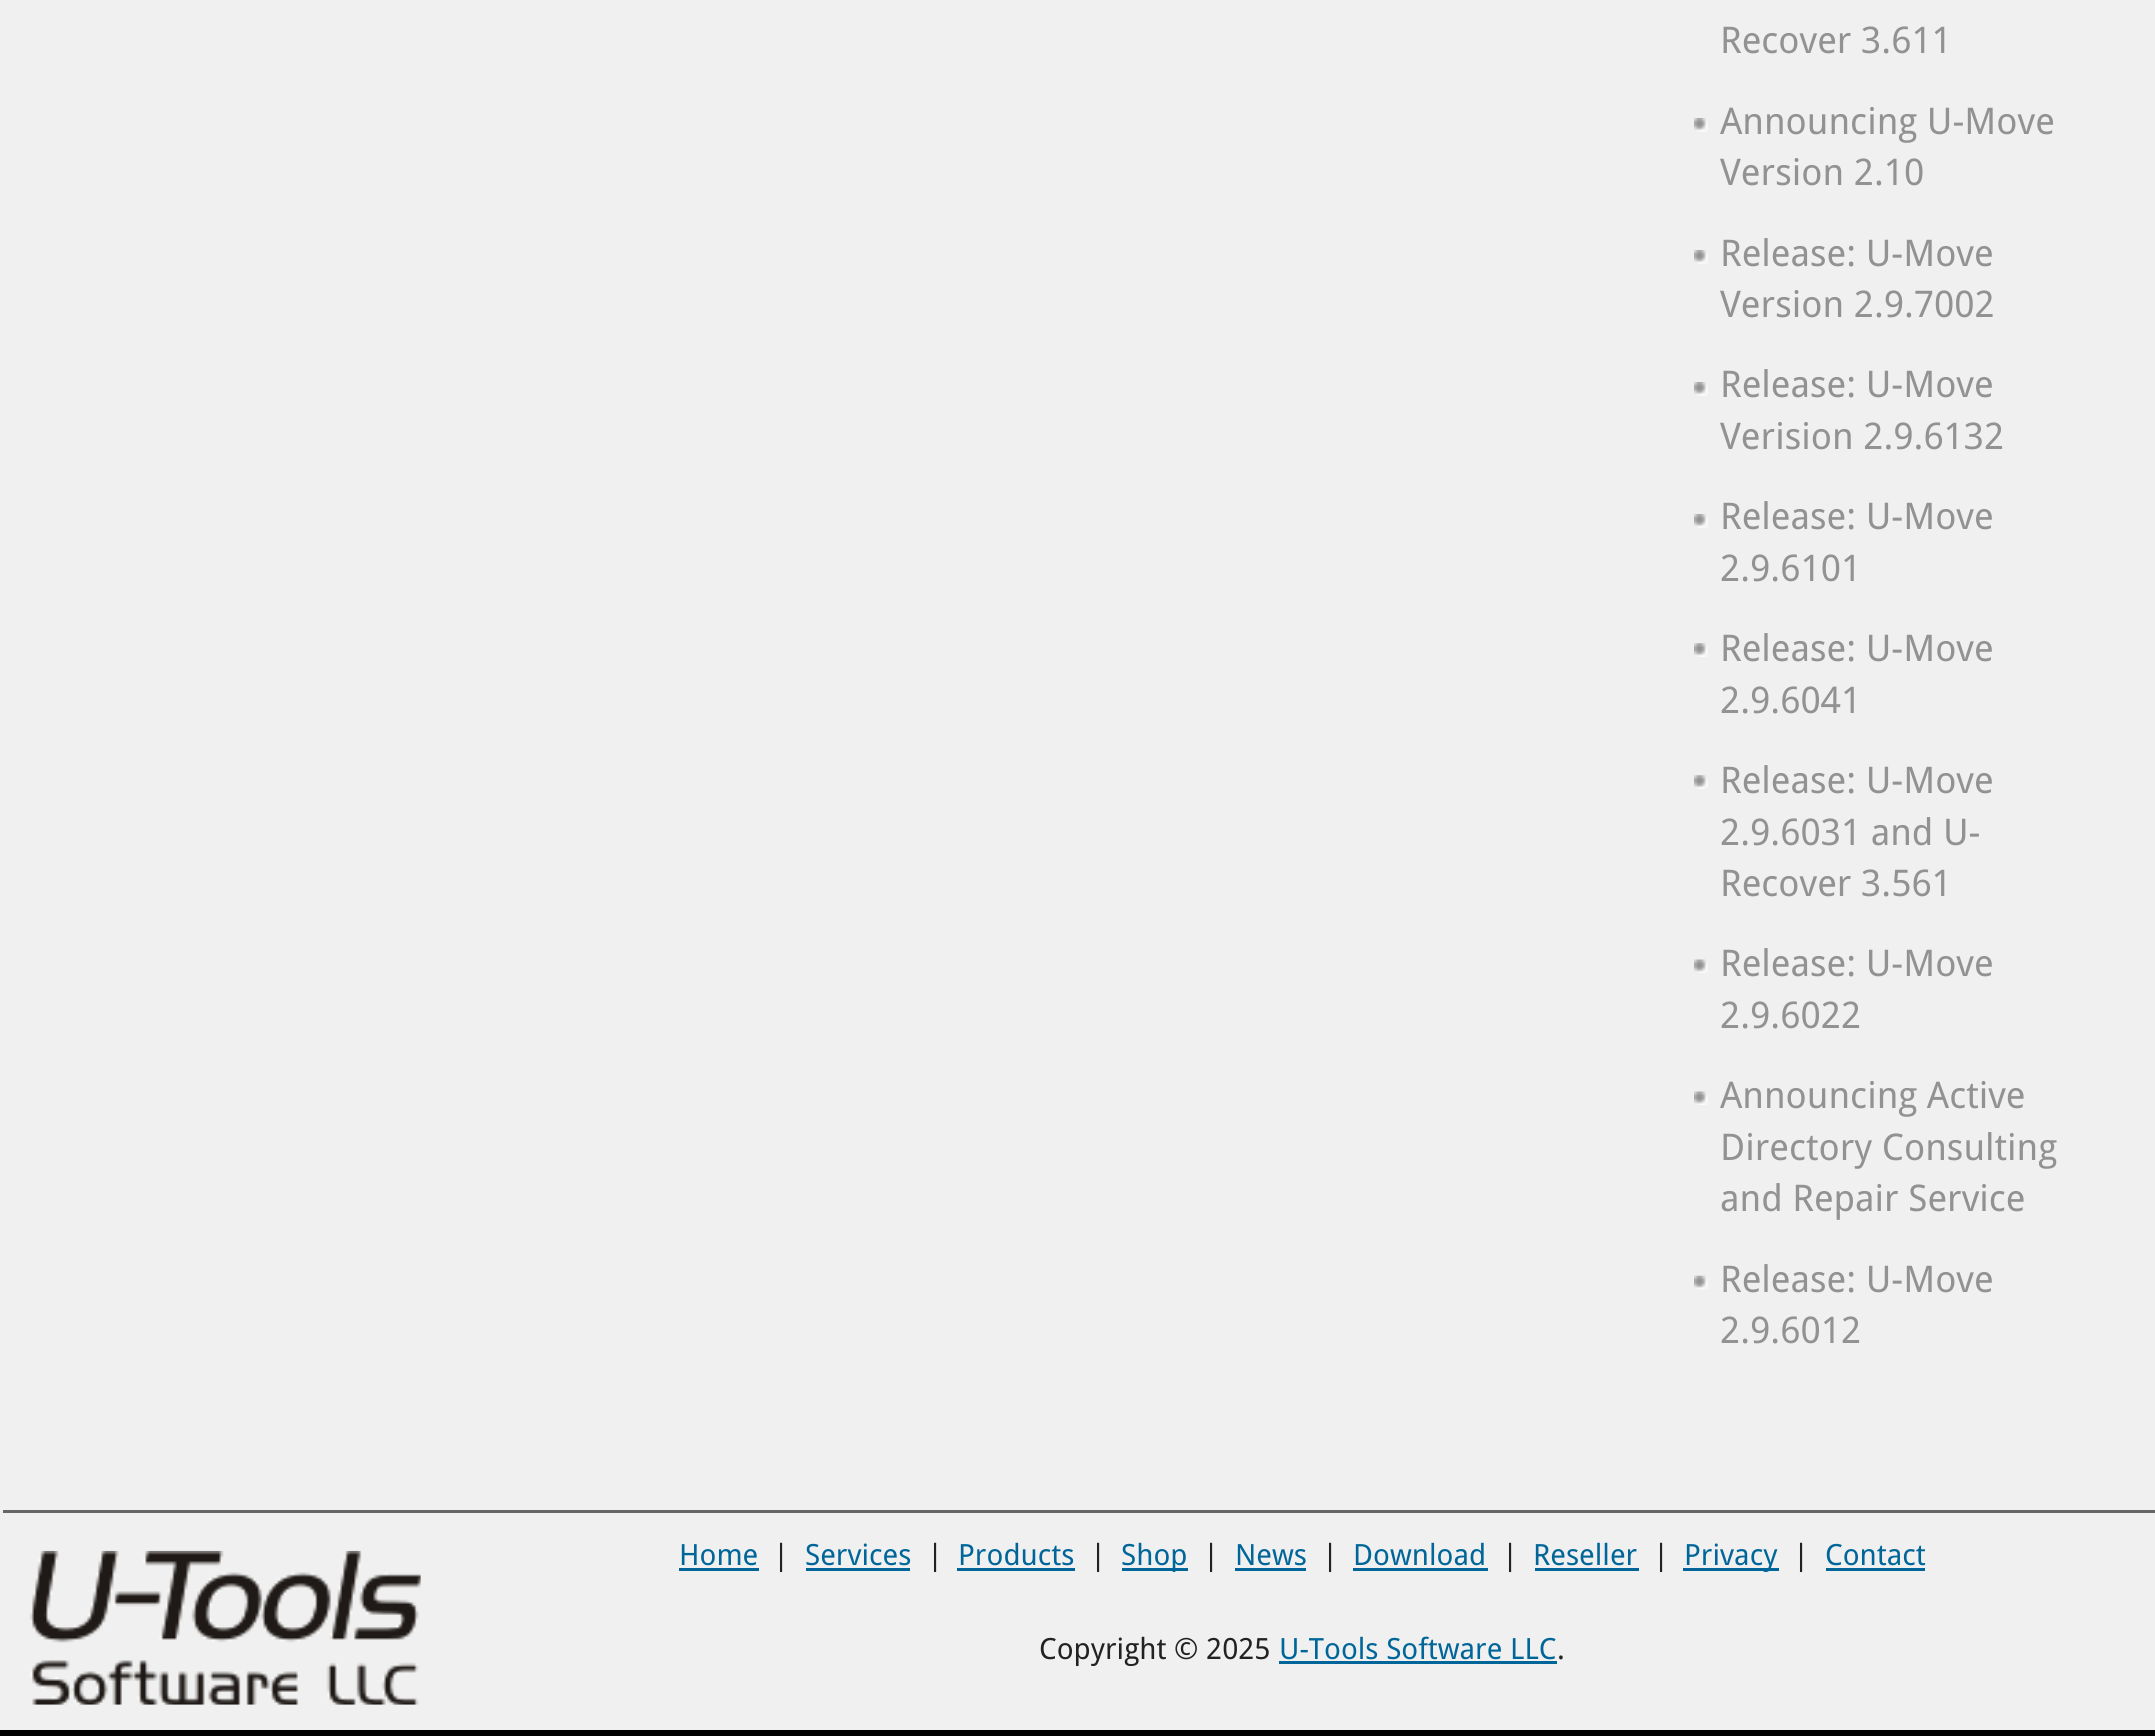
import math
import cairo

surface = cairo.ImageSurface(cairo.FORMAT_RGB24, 2155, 1736)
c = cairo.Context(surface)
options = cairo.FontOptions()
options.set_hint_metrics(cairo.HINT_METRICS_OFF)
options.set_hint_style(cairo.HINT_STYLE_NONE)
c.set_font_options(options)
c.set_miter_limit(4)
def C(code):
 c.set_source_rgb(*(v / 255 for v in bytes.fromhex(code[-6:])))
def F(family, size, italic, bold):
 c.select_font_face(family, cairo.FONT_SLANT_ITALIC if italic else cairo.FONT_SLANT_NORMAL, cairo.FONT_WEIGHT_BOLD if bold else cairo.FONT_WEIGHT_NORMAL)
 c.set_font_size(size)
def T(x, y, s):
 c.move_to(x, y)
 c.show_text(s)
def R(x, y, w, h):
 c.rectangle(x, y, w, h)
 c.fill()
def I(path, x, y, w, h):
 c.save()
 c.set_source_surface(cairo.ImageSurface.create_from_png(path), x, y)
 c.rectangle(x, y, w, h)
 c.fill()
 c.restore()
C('f0f0f0')
c.paint()
C('000000')
R(0,1730,2155,6)
F('Droid Sans',36.75,0,0)
C('929292')
T(1720,53,'Recover 3.611')
I('1.png',1694,118,14,14)
T(1720,134,'Announcing U-Move')
T(1720,185,'Version 2.10')
I('1.png',1694,250,14,14)
T(1720,266,'Release: U-Move')
T(1720,317,'Version 2.9.7002')
I('1.png',1694,382,14,14)
T(1720,397,'Release: U-Move')
T(1720,449,'Verision 2.9.6132')
I('1.png',1694,514,14,14)
T(1720,529,'Release: U-Move')
T(1720,581,'2.9.6101')
I('2.png',1694,643,14,14)
T(1720,661,'Release: U-Move')
T(1720,713,'2.9.6041')
I('2.png',1694,775,14,14)
T(1720,793,'Release: U-Move')
T(1720,845,'2.9.6031 and U-')
T(1720,896,'Recover 3.561')
I('3.png',1694,959,14,14)
T(1720,976,'Release: U-Move')
T(1720,1028,'2.9.6022')
I('3.png',1694,1091,14,14)
T(1720,1108,'Announcing Active')
T(1720,1160,'Directory Consulting')
T(1720,1211,'and Repair Service')
I('4.png',1694,1275,14,15)
T(1720,1292,'Release: U-Move')
T(1720,1343,'2.9.6012')
C('666666')
R(3,1510,2152,3)
I('5.png',29,1550,392,155)
F('Droid Sans',29.25,0,0)
C('006699')
T(679,1565,'Home')
R(679,1568,80,3)
C('222222')
T(773,1565,'|')
C('006699')
T(805,1565,'Services')
R(806,1568,104,3)
C('222222')
T(927,1565,'|')
C('006699')
T(958,1565,'Products')
R(957,1568,118,3)
C('222222')
T(1090,1565,'|')
C('006699')
R(1122,1568,66,3)
T(1121,1565,'Shop')
C('222222')
T(1203,1565,'|')
C('006699')
T(1235,1565,'News')
R(1235,1568,71,3)
C('222222')
T(1322,1565,'|')
C('006699')
T(1353,1565,'Download')
R(1353,1568,135,3)
C('222222')
T(1502,1565,'|')
C('006699')
T(1533,1565,'Reseller')
R(1535,1568,104,3)
C('222222')
T(1653,1565,'|')
C('006699')
R(1683,1568,96,3)
T(1684,1565,'Privacy')
C('222222')
T(1793,1565,'|')
C('006699')
T(1825,1565,'Contact')
R(1826,1568,99,3)
C('222222')
T(1039,1659,'Copyright © 2025')
C('006699')
T(1279,1659,'U-Tools Software LLC')
R(1279,1661,278,3)
C('222222')
T(1557,1659,'.')
surface.write_to_png('o.png')
